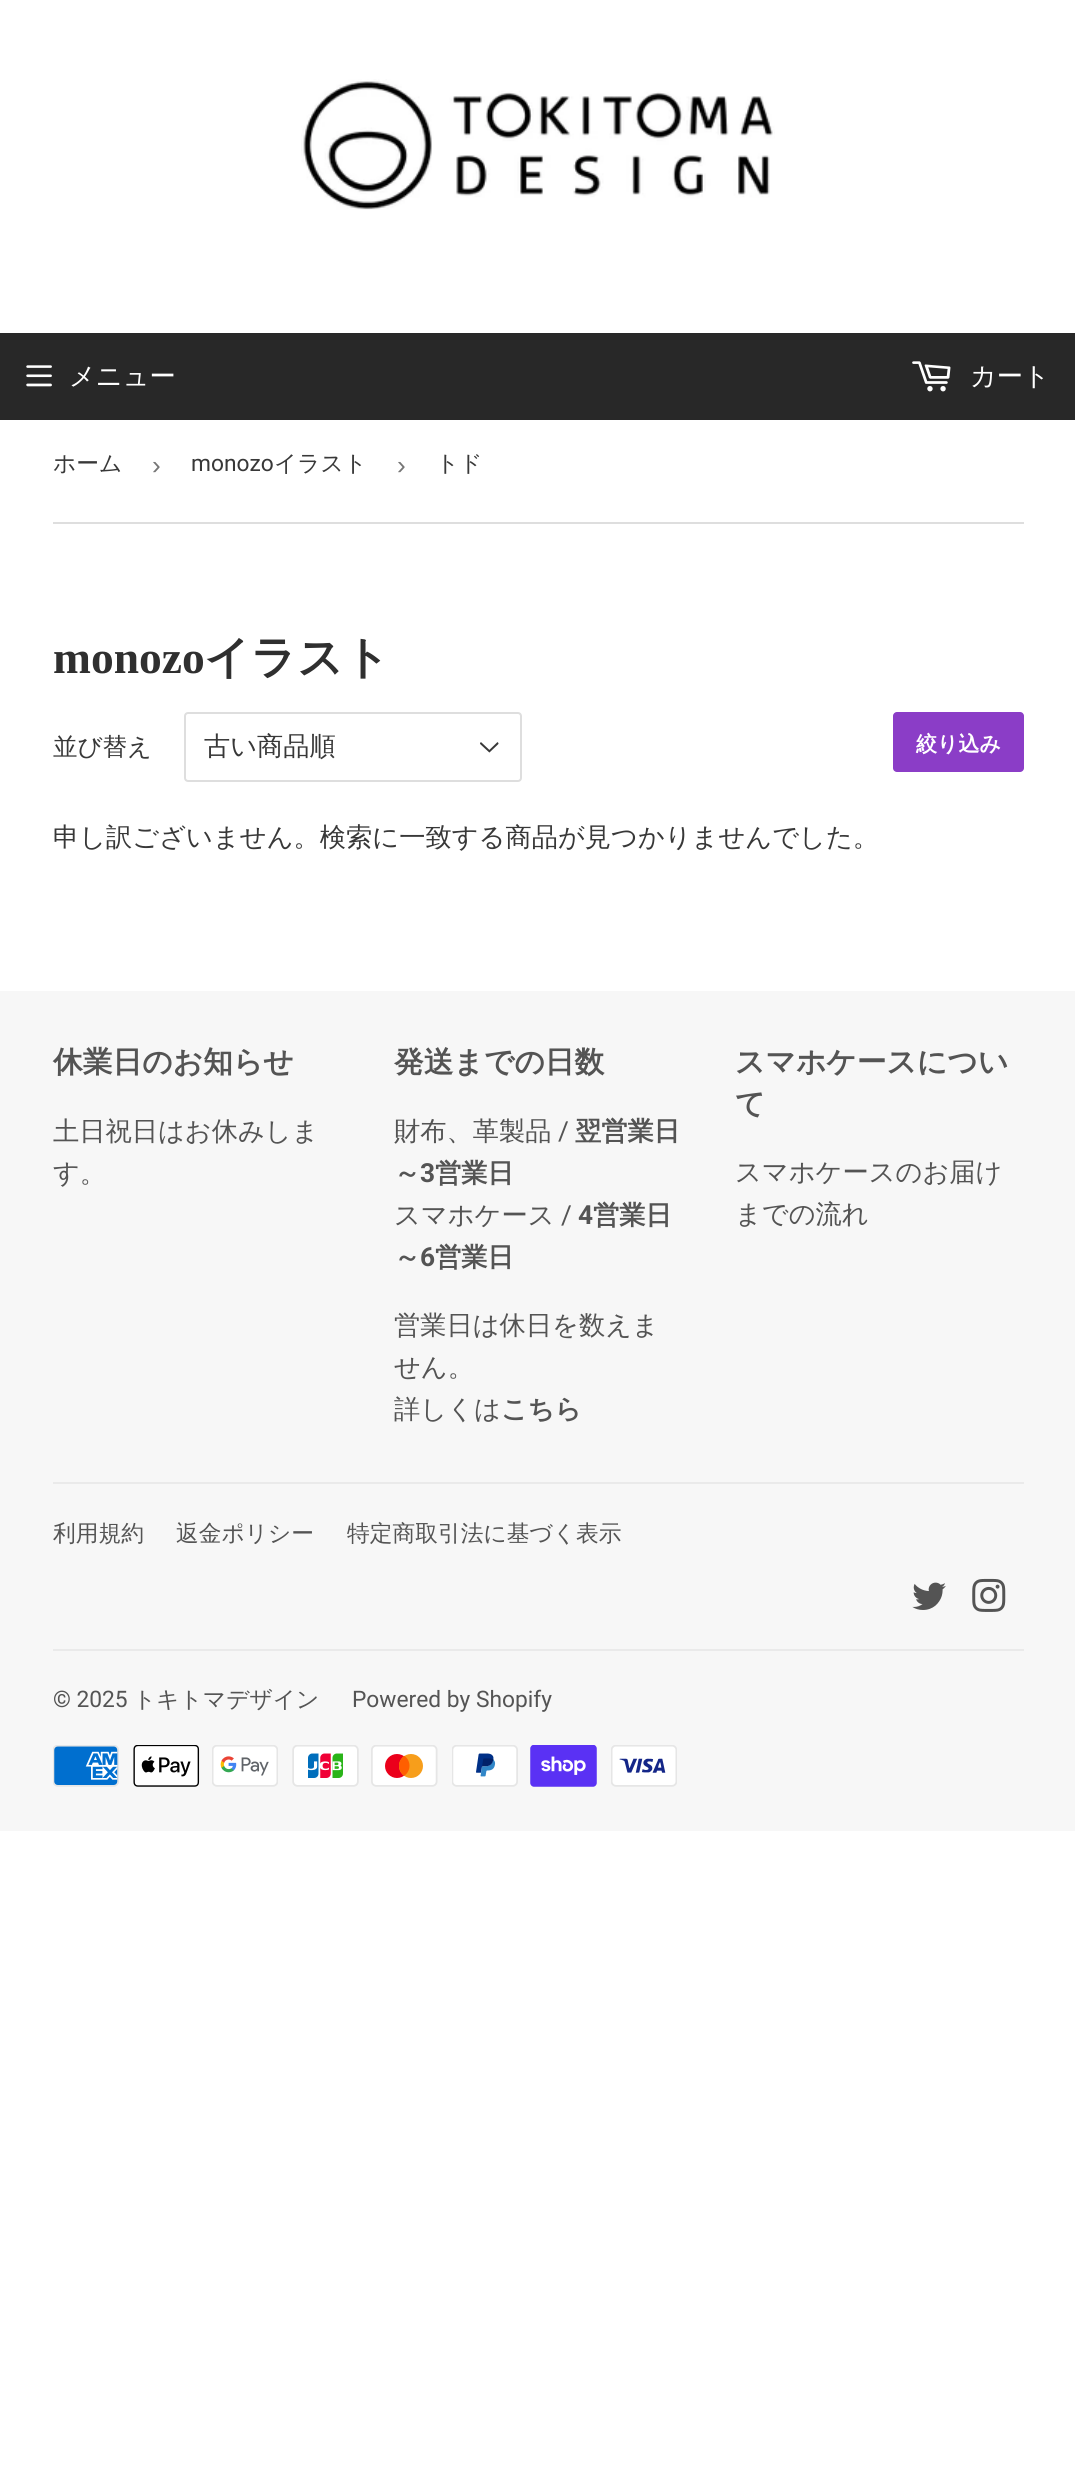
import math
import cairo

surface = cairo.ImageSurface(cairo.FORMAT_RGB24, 1075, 2483)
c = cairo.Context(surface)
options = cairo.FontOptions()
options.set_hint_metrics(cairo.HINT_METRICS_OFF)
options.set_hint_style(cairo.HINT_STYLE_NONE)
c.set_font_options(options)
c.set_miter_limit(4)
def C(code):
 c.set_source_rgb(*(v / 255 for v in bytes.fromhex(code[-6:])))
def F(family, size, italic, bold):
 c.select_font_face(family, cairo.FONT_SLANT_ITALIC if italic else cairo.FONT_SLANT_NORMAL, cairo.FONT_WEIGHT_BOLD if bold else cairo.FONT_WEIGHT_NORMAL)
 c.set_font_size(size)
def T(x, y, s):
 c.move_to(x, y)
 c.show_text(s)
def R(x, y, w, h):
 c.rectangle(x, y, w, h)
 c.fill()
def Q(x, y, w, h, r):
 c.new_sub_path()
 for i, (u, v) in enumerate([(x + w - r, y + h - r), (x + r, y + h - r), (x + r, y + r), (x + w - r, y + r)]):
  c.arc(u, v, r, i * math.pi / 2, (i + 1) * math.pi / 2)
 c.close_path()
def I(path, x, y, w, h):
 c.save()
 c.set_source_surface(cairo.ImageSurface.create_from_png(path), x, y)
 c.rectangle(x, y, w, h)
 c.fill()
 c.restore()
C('ffffff')
c.paint()
I('1.png',301,79,474,131)
C('282828')
R(0,333,1075,87)
I('2.png',26,365,26,22)
F('WenQuanYi Zen Hei Medium',26.25,0,0)
C('ffffff')
T(69,385,'メニュー')
I('3.png',912,361,39,31)
T(970,385,'カート')
C('dedede')
R(53,522,971,2)
F('WenQuanYi Zen Hei Medium',22.75,0,0)
C('383838')
T(53,471,'ホーム')
F('Liberation Sans',26.25,0,0)
C('767676')
T(152,474,'›')
F('Roboto',22.75,0,0)
C('383838')
T(191,471,'monozo')
F('WenQuanYi Zen Hei Medium',22.75,0,0)
T(274,471,'イラスト')
F('Liberation Sans',26.25,0,0)
C('767676')
T(397,474,'›')
F('WenQuanYi Zen Hei Medium',22.75,0,0)
C('383838')
T(436,471,'トド')
F('Liberation Serif',45.5,0,1)
C('2f2f2f')
T(53,673,'monozo')
F('WenQuanYi Zen Hei',45.5,0,1)
T(204,673,'イラスト')
F('WenQuanYi Zen Hei Medium',24.5,0,0)
C('383838')
T(53,755,'並び替え')
I('4.png',480,742,19,11)
Q(185,713,336,68,3)
C('dedede')
c.stroke()
F('WenQuanYi Zen Hei Medium',26.25,0,0)
C('383838')
T(204,755,'古い商品順')
C('8b3dc7')
Q(893,712,131,60,4)
c.fill()
F('WenQuanYi Zen Hei',21,0,1)
C('ffffff')
T(916,751,'絞り込み')
F('WenQuanYi Zen Hei Medium',26.25,0,0)
C('383838')
T(53,846,'申し訳ございません。検索に一致する商品が見つかりませんでした。')
C('f7f7f7')
R(0,991,1075,840)
F('WenQuanYi Zen Hei',29.75,0,1)
C('545454')
T(53,1072,'休業日のお知らせ')
F('WenQuanYi Zen Hei Medium',26.25,0,0)
T(53,1140,'土日祝日はお休みしま')
T(53,1182,'す。')
F('WenQuanYi Zen Hei',29.75,0,1)
T(394,1072,'発送までの日数')
F('WenQuanYi Zen Hei Medium',26.25,0,0)
T(394,1140,'財布、革製品')
F('Roboto',26.25,0,0)
T(558,1140,'/')
F('WenQuanYi Zen Hei',26.25,0,1)
T(575,1140,'翌営業日')
T(394,1182,'～')
F('Roboto',26.25,0,1)
T(420,1182,'3')
F('WenQuanYi Zen Hei',26.25,0,1)
T(435,1182,'営業日')
F('WenQuanYi Zen Hei Medium',26.25,0,0)
T(394,1224,'スマホケース')
F('Roboto',26.25,0,0)
T(561,1224,'/')
F('Roboto',26.25,0,1)
T(578,1224,'4')
F('WenQuanYi Zen Hei',26.25,0,1)
T(593,1224,'営業日')
T(394,1266,'～')
F('Roboto',26.25,0,1)
T(420,1266,'6')
F('WenQuanYi Zen Hei',26.25,0,1)
T(435,1266,'営業日')
F('WenQuanYi Zen Hei Medium',26.25,0,0)
T(394,1334,'営業日は休日を数えま')
T(394,1376,'せん。')
T(394,1418,'詳しくは')
F('WenQuanYi Zen Hei',26.25,0,1)
T(501,1418,'こちら')
F('WenQuanYi Zen Hei',29.75,0,1)
T(735,1072,'スマホケースについ')
T(735,1114,'て')
F('WenQuanYi Zen Hei Medium',26.25,0,0)
T(735,1181,'スマホケースのお届け')
T(735,1223,'までの流れ')
C('eaeaea')
R(53,1482,971,2)
F('WenQuanYi Zen Hei Medium',22.75,0,0)
C('545454')
T(53,1541,'利用規約')
T(176,1541,'返金ポリシー')
T(347,1541,'特定商取引法に基づく表示')
I('5.png',912,1582,34,28)
I('6.png',972,1578,34,34)
C('eaeaea')
R(53,1649,971,2)
F('Roboto',22.75,0,0)
C('545454')
T(53,1707,'© 2025')
F('WenQuanYi Zen Hei Medium',22.75,0,0)
T(133,1707,'トキトマデザイン')
F('Roboto',22.75,0,0)
T(352,1707,'Powered by Shopify')
I('7.png',53,1745,66,42)
I('8.png',133,1745,67,42)
I('9.png',212,1745,66,42)
I('10.png',292,1745,67,42)
I('11.png',371,1745,67,42)
I('12.png',452,1745,66,42)
I('13.png',530,1745,67,42)
I('14.png',611,1745,66,42)
surface.write_to_png('o.png')
